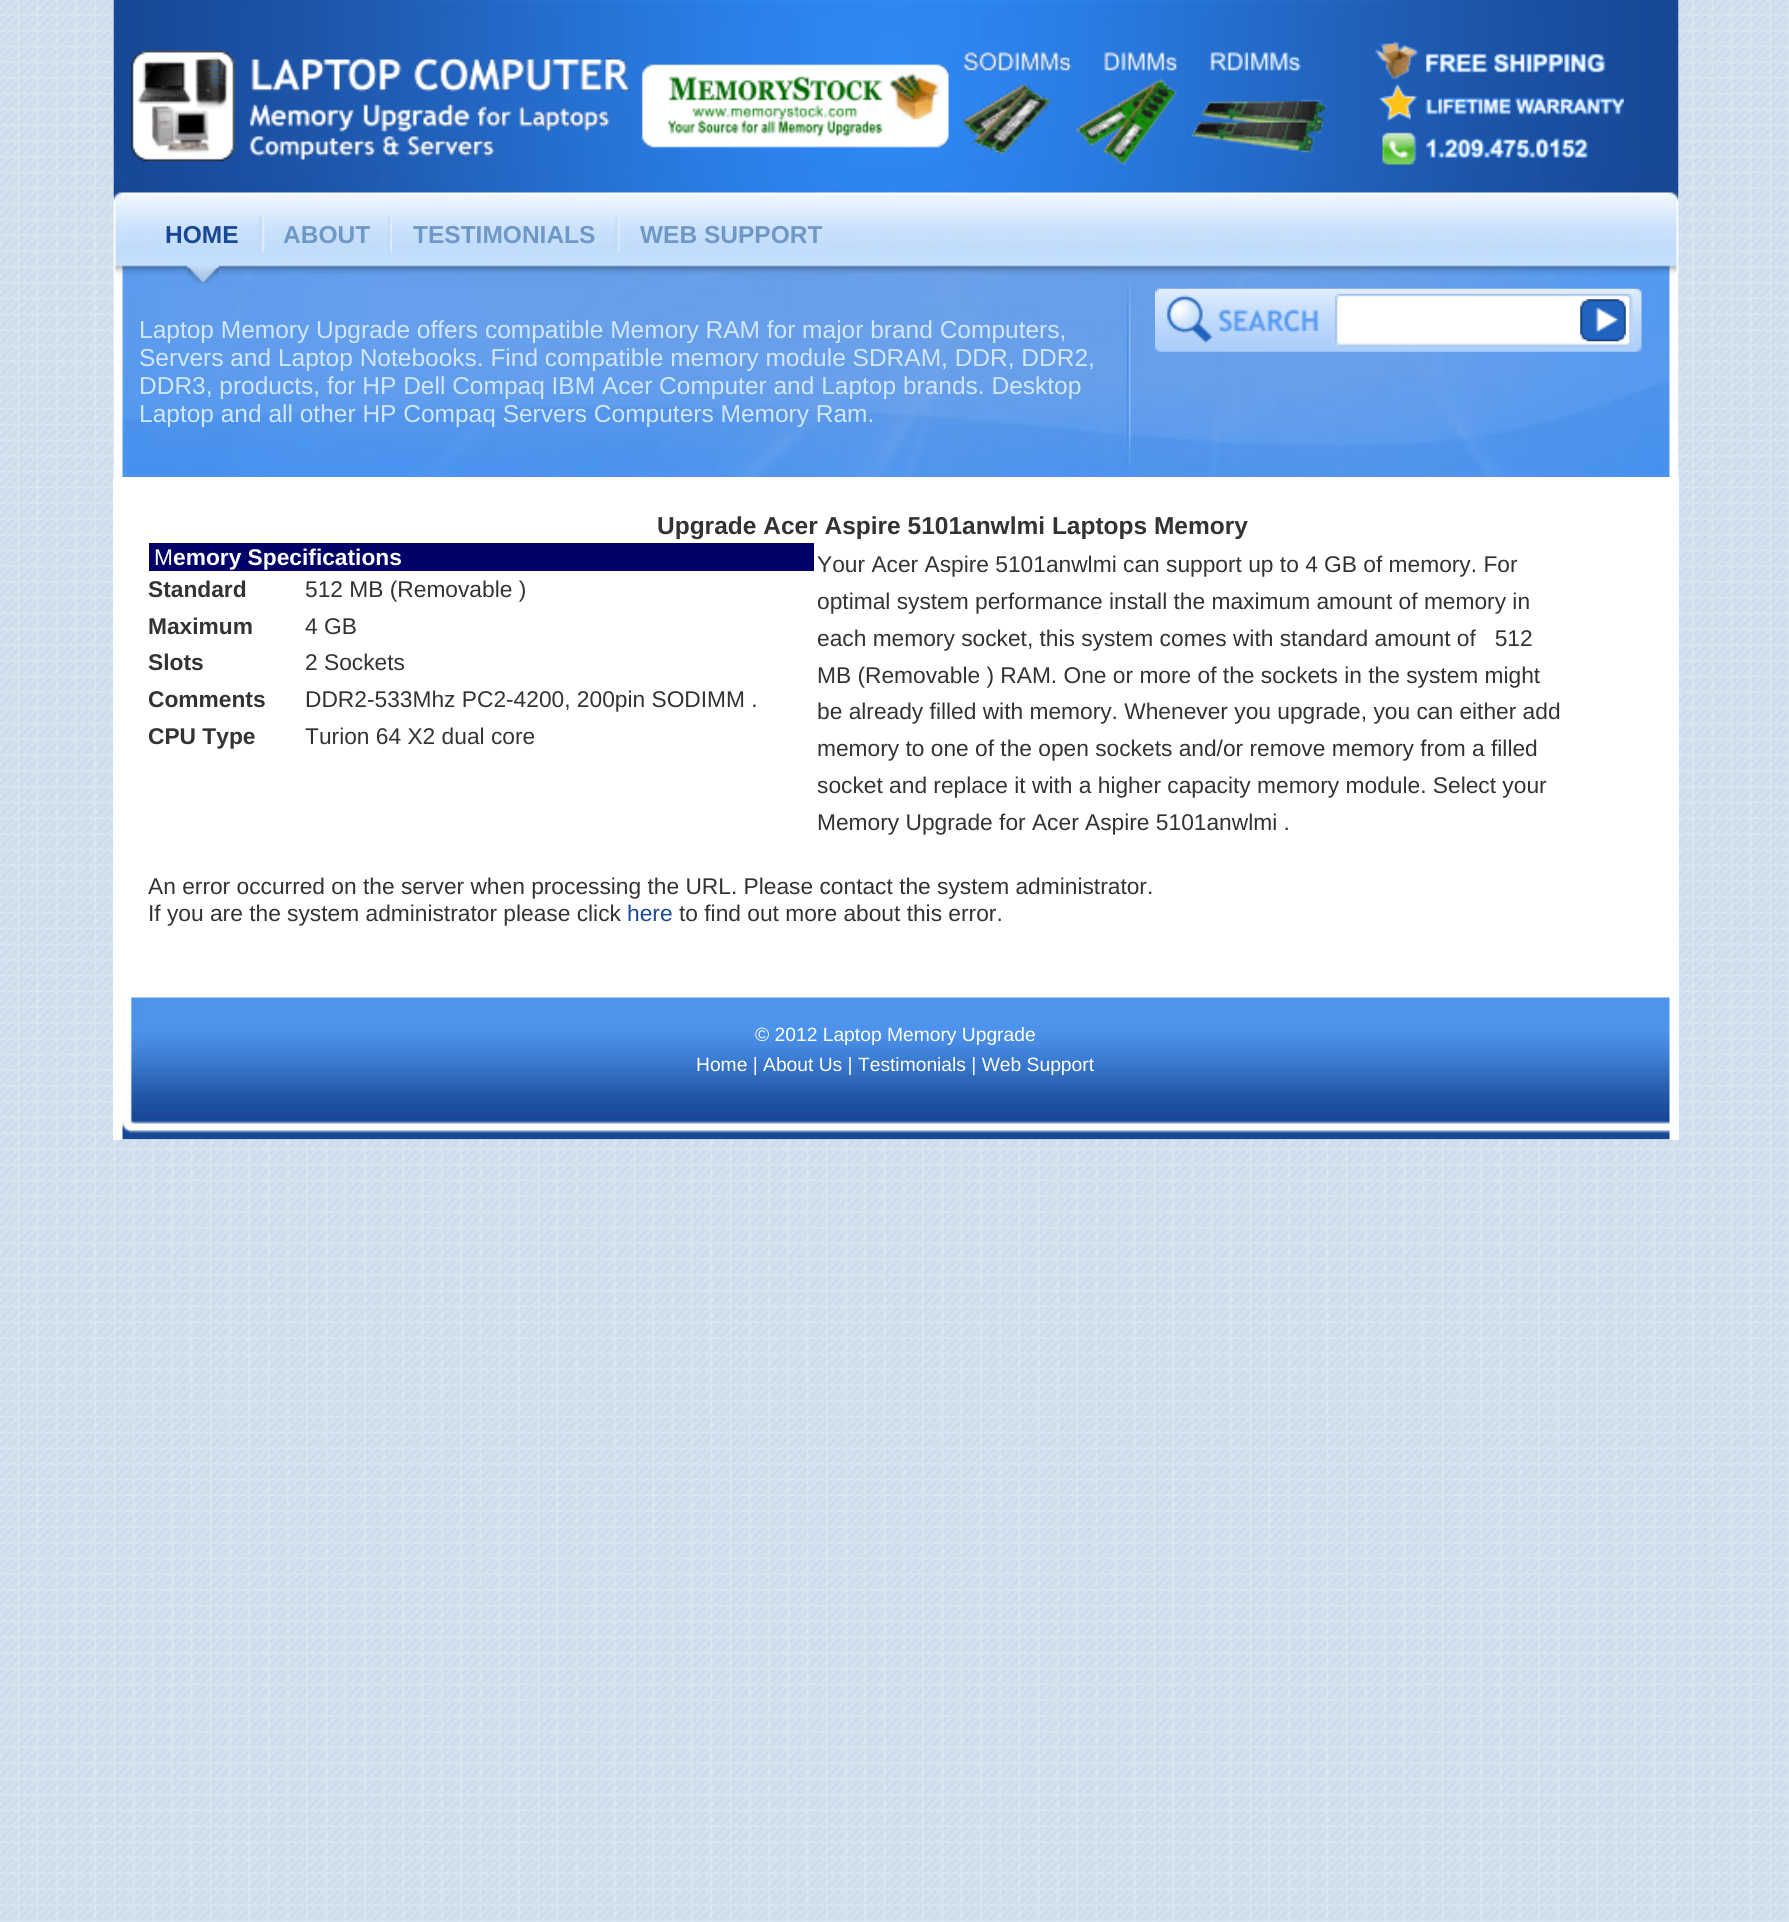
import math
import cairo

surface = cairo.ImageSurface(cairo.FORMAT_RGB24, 1789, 1922)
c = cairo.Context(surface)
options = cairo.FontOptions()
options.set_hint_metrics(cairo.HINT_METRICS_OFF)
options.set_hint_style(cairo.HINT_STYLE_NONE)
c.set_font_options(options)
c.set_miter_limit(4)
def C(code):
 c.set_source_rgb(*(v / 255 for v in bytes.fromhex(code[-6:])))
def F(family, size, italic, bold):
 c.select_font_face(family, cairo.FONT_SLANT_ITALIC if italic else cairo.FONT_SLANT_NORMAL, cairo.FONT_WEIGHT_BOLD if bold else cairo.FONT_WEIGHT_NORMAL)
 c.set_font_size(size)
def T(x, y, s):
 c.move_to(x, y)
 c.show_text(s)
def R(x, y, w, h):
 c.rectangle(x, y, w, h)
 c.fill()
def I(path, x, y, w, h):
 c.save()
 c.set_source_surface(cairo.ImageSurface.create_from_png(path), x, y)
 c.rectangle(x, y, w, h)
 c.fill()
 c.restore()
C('ffffff')
c.paint()
I('1.png',0,0,1789,1922)
I('2.png',113,0,1566,477)
I('3.png',131,42,1493,123)
I('4.png',187,265,32,19)
F('Liberation Sans',24.5,0,1)
C('184896')
T(165,243,'HOME')
I('5.png',257,215,8,37)
C('7098c6')
T(283,243,'ABOUT')
I('6.png',387,215,5,37)
T(413,243,'TESTIMONIALS')
I('7.png',614,215,6,37)
T(640,243,'WEB SUPPORT')
F('Liberation Sans',24.5,0,0)
C('d2e7ff')
T(139,338,'Laptop Memory Upgrade offers compatible Memory RAM for major brand Computers,')
T(139,366,'Servers and Laptop Notebooks. Find compatible memory module SDRAM, DDR, DDR2,')
T(139,394,'DDR3, products, for HP Dell Compaq IBM Acer Computer and Laptop brands. Desktop')
T(139,422,'Laptop and all other HP Compaq Servers Computers Memory Ram.')
I('8.png',1155,288,487,64)
I('9.png',1335,294,298,53)
I('10.png',1580,299,46,43)
C('ffffff')
R(113,477,1566,663)
F('Liberation Sans',24.5,0,1)
C('333333')
T(657,534,'Upgrade Acer Aspire 5101anwlmi Laptops Memory')
C('010168')
R(149,543,665,28)
F('Liberation Sans',22.75,0,0)
C('ffffff')
T(154,565,'M')
F('Liberation Sans',22.75,0,1)
T(173,565,'emory Specifications')
C('333333')
T(148,597,'Standard')
F('Liberation Sans',22.75,0,0)
T(305,597,'512 MB (Removable )')
F('Liberation Sans',22.75,0,1)
T(148,634,'Maximum')
F('Liberation Sans',22.75,0,0)
T(305,634,'4 GB')
F('Liberation Sans',22.75,0,1)
T(148,670,'Slots')
F('Liberation Sans',22.75,0,0)
T(305,670,'2 Sockets')
F('Liberation Sans',22.75,0,1)
T(148,707,'Comments')
F('Liberation Sans',22.75,0,0)
T(305,707,'DDR2-533Mhz PC2-4200, 200pin SODIMM .')
F('Liberation Sans',22.75,0,1)
T(148,744,'CPU Type')
F('Liberation Sans',22.75,0,0)
T(305,744,'Turion 64 X2 dual core')
T(817,572,'Your Acer Aspire 5101anwlmi can support up to 4 GB of memory. For')
T(817,609,'optimal system performance install the maximum amount of memory in')
T(817,646,'each memory socket, this system comes with standard amount of   512')
T(817,683,'MB (Removable ) RAM. One or more of the sockets in the system might')
T(817,719,'be already filled with memory. Whenever you upgrade, you can either add')
T(817,756,'memory to one of the open sockets and/or remove memory from a filled')
T(817,793,'socket and replace it with a higher capacity memory module. Select your')
T(817,830,'Memory Upgrade for Acer Aspire 5101anwlmi .')
T(148,894,'An error occurred on the server when processing the URL. Please contact the system administrator.')
T(148,921,'If you are the system administrator please click')
C('184896')
T(627,921,'here')
C('333333')
T(679,921,'to find out more about this error.')
I('11.png',122,997,1548,143)
F('Liberation Sans',19.25,0,0)
C('ffffff')
T(755,1041,'© 2012 Laptop Memory Upgrade')
T(696,1071,'Home | About Us | Testimonials | Web Support')
surface.write_to_png('o.png')
